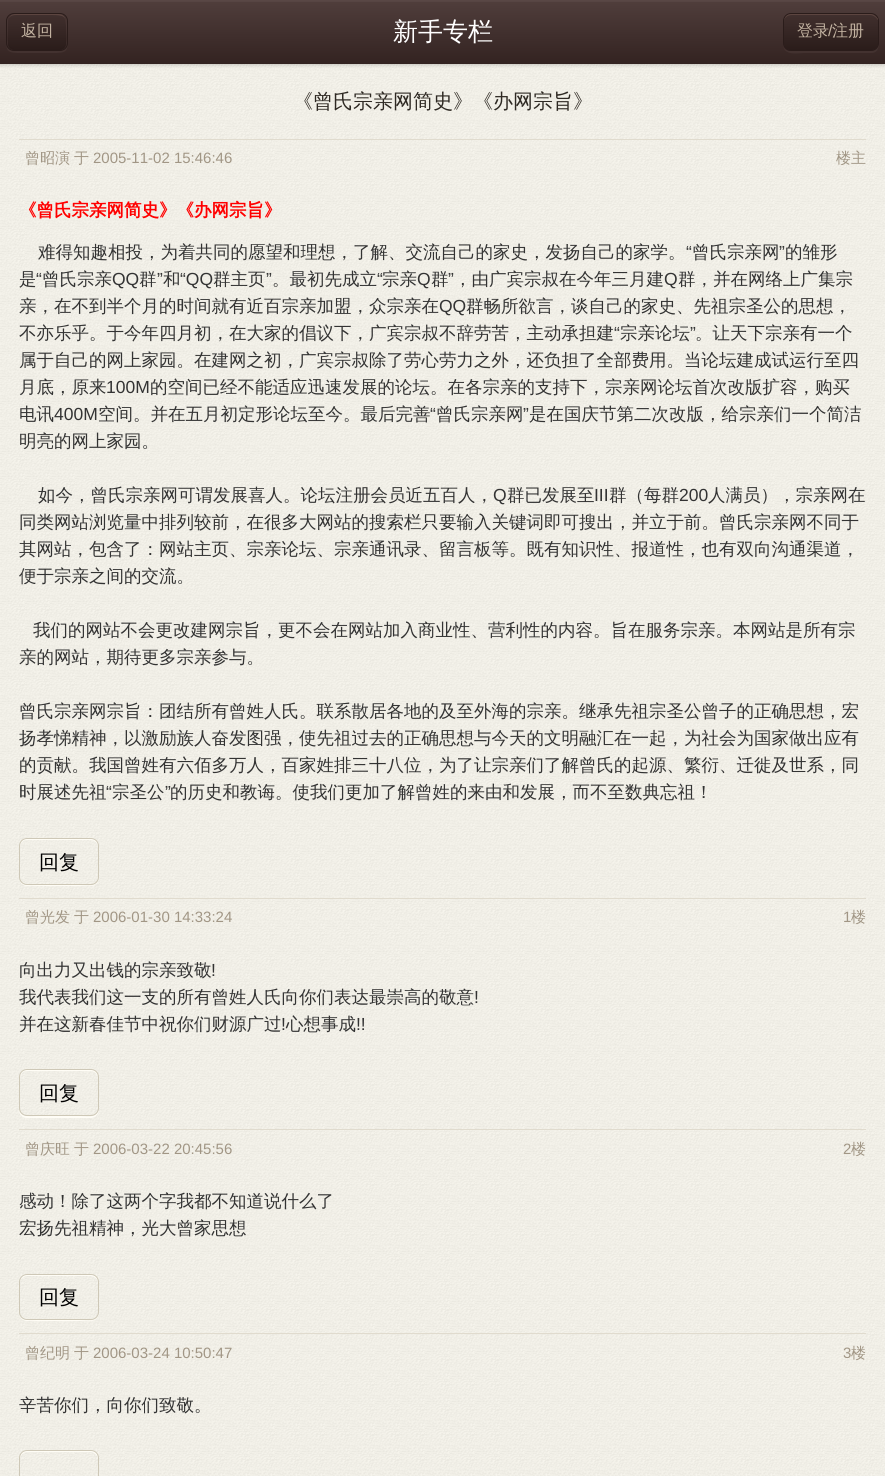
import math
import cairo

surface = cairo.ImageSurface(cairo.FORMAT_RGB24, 885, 1476)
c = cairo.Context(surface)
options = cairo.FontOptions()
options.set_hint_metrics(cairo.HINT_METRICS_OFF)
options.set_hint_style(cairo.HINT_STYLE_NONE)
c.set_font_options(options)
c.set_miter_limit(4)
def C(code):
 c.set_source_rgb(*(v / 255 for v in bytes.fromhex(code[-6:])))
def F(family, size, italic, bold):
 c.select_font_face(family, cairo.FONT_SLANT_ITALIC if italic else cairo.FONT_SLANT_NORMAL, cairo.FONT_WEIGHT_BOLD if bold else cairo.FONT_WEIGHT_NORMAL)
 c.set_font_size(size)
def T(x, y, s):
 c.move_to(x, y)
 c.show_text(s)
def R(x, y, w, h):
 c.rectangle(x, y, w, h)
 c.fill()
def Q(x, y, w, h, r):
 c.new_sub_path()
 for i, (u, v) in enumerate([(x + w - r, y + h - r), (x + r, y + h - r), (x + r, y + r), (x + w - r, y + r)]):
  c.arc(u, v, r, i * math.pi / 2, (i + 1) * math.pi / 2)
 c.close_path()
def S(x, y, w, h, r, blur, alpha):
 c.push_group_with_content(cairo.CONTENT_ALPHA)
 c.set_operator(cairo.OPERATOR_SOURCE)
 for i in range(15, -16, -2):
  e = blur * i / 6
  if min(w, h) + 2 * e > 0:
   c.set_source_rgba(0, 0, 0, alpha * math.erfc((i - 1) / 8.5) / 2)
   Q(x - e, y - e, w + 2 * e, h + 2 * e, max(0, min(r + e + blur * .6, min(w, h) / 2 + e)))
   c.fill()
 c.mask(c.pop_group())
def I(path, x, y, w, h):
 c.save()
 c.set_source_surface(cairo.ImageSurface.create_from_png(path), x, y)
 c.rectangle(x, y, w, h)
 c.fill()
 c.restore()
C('ffffff')
c.paint()
I('1.png',0,64,885,1412)
C('000000')
S(0,1,885,64,0,2,.2)
gradient = cairo.LinearGradient(443,1.2,443,64)
gradient.add_color_stop_rgba(0,0.349,0.278,0.271,1)
gradient.add_color_stop_rgba(.02,0.31,0.239,0.231,1)
gradient.add_color_stop_rgba(1,0.2,0.137,0.129,1)
c.set_source(gradient)
R(0,1,885,63)
C('594745')
R(0,0,885,1)
C('433230')
c.new_path()
c.move_to(6,20)
c.line_to(6,37)
c.curve_to(6,52,7,53,22,53)
c.line_to(52,53)
c.curve_to(67,53,68,52,68,37)
c.line_to(68,26)
c.curve_to(68,23,68,21,67,19)
c.line_to(68,36)
c.curve_to(68,50,67,51,52,51)
c.line_to(22,51)
c.curve_to(7,51,6,50,6,36)
c.close_path()
c.fill()
gradient = cairo.LinearGradient(37,14,37,50)
gradient.add_color_stop_rgba(0,0.255,0.188,0.18,1)
gradient.add_color_stop_rgba(1,0.165,0.11,0.102,1)
c.set_source(gradient)
Q(8,14,58,36,6)
c.fill()
Q(6.5,13.5,61,37,7.5)
C('2a1c1a')
c.set_line_width(1)
c.stroke()
C('5c4540')
c.set_fill_rule(cairo.FILL_RULE_EVEN_ODD)
c.new_path()
c.move_to(8,32)
c.line_to(8,22)
c.close_path()
c.move_to(16,14)
c.curve_to(11,14,8,17,8,22)
c.curve_to(8,18,10,15,16,15)
c.line_to(51,15)
c.curve_to(64,15,66,16,66,26)
c.line_to(66,32)
c.curve_to(66,25,68,14,58,14)
c.close_path()
c.fill()
C('2a1c1a')
c.set_fill_rule(cairo.FILL_RULE_WINDING)
c.new_path()
c.move_to(16,50)
c.line_to(60,50)
c.curve_to(68,48,66,38,66,32)
c.line_to(66,38)
c.curve_to(66,48,64,49,51,49)
c.line_to(23,49)
c.curve_to(10,49,8,48,8,38)
c.line_to(8,32)
c.curve_to(8,39,6,50,16,50)
c.close_path()
c.fill()
F('WenQuanYi Zen Hei Medium',16,0,0)
C('c3b3a1')
T(21,36,'返回')
F('WenQuanYi Zen Hei Medium',25,0,0)
C('ffffff')
T(393,40,'新手专栏')
C('433230')
c.new_path()
c.move_to(783,46)
c.curve_to(785,56,798,53,804,53)
c.line_to(871,53)
c.curve_to(880,53,879,44,879,37)
c.line_to(879,20)
c.line_to(879,43)
c.curve_to(879,48,875,51,871,51)
c.line_to(790,51)
c.curve_to(787,51,784,49,783,46)
c.close_path()
c.fill()
gradient = cairo.LinearGradient(831,14,831,50)
gradient.add_color_stop_rgba(0,0.255,0.188,0.18,1)
gradient.add_color_stop_rgba(1,0.165,0.11,0.102,1)
c.set_source(gradient)
Q(784,14,94,36,6)
c.fill()
Q(783.5,13.5,95,37,7.5)
C('2a1c1a')
c.stroke()
C('5c4540')
c.new_path()
c.move_to(792,14)
c.line_to(870,14)
c.curve_to(873,14,876,16,878,19)
c.line_to(878,20)
c.curve_to(876,17,873,15,870,15)
c.line_to(792,15)
c.curve_to(787,15,784,18,784,22)
c.curve_to(784,17,787,14,792,14)
c.close_path()
c.fill()
F('WenQuanYi Zen Hei Medium',16,0,0)
C('c3b3a1')
T(797,36,'登录')
F('Liberation Sans',16,0,0)
T(828,36,'/')
F('WenQuanYi Zen Hei Medium',16,0,0)
T(832,36,'注册')
C('e0dbce')
R(19,139,847,1)
F('WenQuanYi Zen Hei Medium',20,0,0)
C('2e2923')
T(293,108,'《曾氏宗亲网简史》《办网宗旨》')
F('WenQuanYi Zen Hei Medium',15,0,0)
C('a19685')
T(25,163,'曾昭演')
T(74,163,'于')
F('Liberation Sans',15,0,0)
T(93,163,'2005-11-02 15:46:46')
F('WenQuanYi Zen Hei Medium',15,0,0)
T(836,163,'楼主')
C('e0dbce')
R(19,898,847,1)
F('WenQuanYi Zen Hei',17.5,0,1)
C('ff0000')
T(19,216,'《曾氏宗亲网简史》《办网宗旨》')
F('WenQuanYi Zen Hei Medium',17.5,0,0)
C('333333')
T(38,258,'难得知趣相投，为着共同的愿望和理想，了解、交流自己的家史，发扬自己的家学。')
F('Liberation Sans',17.5,0,0)
T(686,258,'“')
F('WenQuanYi Zen Hei Medium',17.5,0,0)
T(692,258,'曾氏宗亲网')
F('Liberation Sans',17.5,0,0)
T(779,258,'”')
F('WenQuanYi Zen Hei Medium',17.5,0,0)
T(785,258,'的雏形')
T(19,285,'是')
F('Liberation Sans',17.5,0,0)
T(36,285,'“')
F('WenQuanYi Zen Hei Medium',17.5,0,0)
T(42,285,'曾氏宗亲')
F('Liberation Sans',17.5,0,0)
T(112,285,'QQ')
F('WenQuanYi Zen Hei Medium',17.5,0,0)
T(139,285,'群')
F('Liberation Sans',17.5,0,0)
T(157,285,'”')
F('WenQuanYi Zen Hei Medium',17.5,0,0)
T(163,285,'和')
F('Liberation Sans',17.5,0,0)
T(180,285,'“QQ')
F('WenQuanYi Zen Hei Medium',17.5,0,0)
T(213,285,'群主页')
F('Liberation Sans',17.5,0,0)
T(266,285,'”')
F('WenQuanYi Zen Hei Medium',17.5,0,0)
T(272,285,'。最初先成立')
F('Liberation Sans',17.5,0,0)
T(377,285,'“')
F('WenQuanYi Zen Hei Medium',17.5,0,0)
T(382,285,'宗亲')
F('Liberation Sans',17.5,0,0)
T(417,285,'Q')
F('WenQuanYi Zen Hei Medium',17.5,0,0)
T(431,285,'群')
F('Liberation Sans',17.5,0,0)
T(448,285,'”')
F('WenQuanYi Zen Hei Medium',17.5,0,0)
T(454,285,'，由广宾宗叔在今年三月建')
F('Liberation Sans',17.5,0,0)
T(664,285,'Q')
F('WenQuanYi Zen Hei Medium',17.5,0,0)
T(678,285,'群，并在网络上广集宗')
T(19,312,'亲，在不到半个月的时间就有近百宗亲加盟，众宗亲在')
F('Liberation Sans',17.5,0,0)
T(439,312,'QQ')
F('WenQuanYi Zen Hei Medium',17.5,0,0)
T(466,312,'群畅所欲言，谈自己的家史、先祖宗圣公的思想，')
T(19,339,'不亦乐乎。于今年四月初，在大家的倡议下，广宾宗叔不辞劳苦，主动承担建')
F('Liberation Sans',17.5,0,0)
T(614,339,'“')
F('WenQuanYi Zen Hei Medium',17.5,0,0)
T(620,339,'宗亲论坛')
F('Liberation Sans',17.5,0,0)
T(690,339,'”')
F('WenQuanYi Zen Hei Medium',17.5,0,0)
T(695,339,'。让天下宗亲有一个')
T(19,366,'属于自己的网上家园。在建网之初，广宾宗叔除了劳心劳力之外，还负担了全部费用。当论坛建成试运行至四')
T(19,393,'月底，原来')
F('Liberation Sans',17.5,0,0)
T(106,393,'100M')
F('WenQuanYi Zen Hei Medium',17.5,0,0)
T(150,393,'的空间已经不能适应迅速发展的论坛。在各宗亲的支持下，宗亲网论坛首次改版扩容，购买')
T(19,420,'电讯')
F('Liberation Sans',17.5,0,0)
T(54,420,'400M')
F('WenQuanYi Zen Hei Medium',17.5,0,0)
T(98,420,'空间。并在五月初定形论坛至今。最后完善')
F('Liberation Sans',17.5,0,0)
T(430,420,'“')
F('WenQuanYi Zen Hei Medium',17.5,0,0)
T(436,420,'曾氏宗亲网')
F('Liberation Sans',17.5,0,0)
T(523,420,'”')
F('WenQuanYi Zen Hei Medium',17.5,0,0)
T(529,420,'是在国庆节第二次改版，给宗亲们一个简洁')
T(19,447,'明亮的网上家园。')
T(38,501,'如今，曾氏宗亲网可谓发展喜人。论坛注册会员近五百人，')
F('Liberation Sans',17.5,0,0)
T(493,501,'Q')
F('WenQuanYi Zen Hei Medium',17.5,0,0)
T(507,501,'群已发展至')
F('Liberation Sans',17.5,0,0)
T(594,501,'III')
F('WenQuanYi Zen Hei Medium',17.5,0,0)
T(609,501,'群（每群')
F('Liberation Sans',17.5,0,0)
T(679,501,'200')
F('WenQuanYi Zen Hei Medium',17.5,0,0)
T(708,501,'人满员），宗亲网在')
T(19,528,'同类网站浏览量中排列较前，在很多大网站的搜索栏只要输入关键词即可搜出，并立于前。曾氏宗亲网不同于')
T(19,555,'其网站，包含了：网站主页、宗亲论坛、宗亲通讯录、留言板等。既有知识性、报道性，也有双向沟通渠道，')
T(19,582,'便于宗亲之间的交流。')
T(33,636,'我们的网站不会更改建网宗旨，更不会在网站加入商业性、营利性的内容。旨在服务宗亲。本网站是所有宗')
T(19,663,'亲的网站，期待更多宗亲参与。')
T(19,717,'曾氏宗亲网宗旨：团结所有曾姓人氏。联系散居各地的及至外海的宗亲。继承先祖宗圣公曾子的正确思想，宏')
T(19,744,'扬孝悌精神，以激励族人奋发图强，使先祖过去的正确思想与今天的文明融汇在一起，为社会为国家做出应有')
T(19,771,'的贡献。我国曾姓有六佰多万人，百家姓排三十八位，为了让宗亲们了解曾氏的起源、繁衍、迁徙及世系，同')
T(19,798,'时展述先祖')
F('Liberation Sans',17.5,0,0)
T(106,798,'“')
F('WenQuanYi Zen Hei Medium',17.5,0,0)
T(112,798,'宗圣公')
F('Liberation Sans',17.5,0,0)
T(165,798,'”')
F('WenQuanYi Zen Hei Medium',17.5,0,0)
T(170,798,'的历史和教诲。使我们更加了解曾姓的来由和发展，而不至数典忘祖！')
C('fffdf6')
c.new_path()
c.move_to(19,879)
c.curve_to(20,883,23,886,27,886)
c.line_to(91,886)
c.curve_to(95,886,99,882,99,878)
c.line_to(99,845)
c.line_to(99,879)
c.line_to(96,883)
c.curve_to(92,887,84,885,80,885)
c.line_to(37,885)
c.curve_to(32,885,22,887,19,879)
c.close_path()
c.fill()
c.new_path()
c.move_to(27,840)
c.line_to(91,840)
c.curve_to(94,840,98,843,98,847)
c.curve_to(98,836,90,839,81,839)
c.line_to(37,839)
c.curve_to(28,839,20,836,20,847)
c.curve_to(20,843,23,840,27,840)
c.close_path()
c.fill()
Q(19.5,838.5,79,46,7.5)
C('cec8b7')
c.stroke()
F('WenQuanYi Zen Hei Medium',20,0,0)
C('000000')
T(39,869,'回复')
F('WenQuanYi Zen Hei Medium',15,0,0)
C('a19685')
T(25,922,'曾光发')
T(74,922,'于')
F('Liberation Sans',15,0,0)
T(93,922,'2006-01-30 14:33:24')
T(843,922,'1')
F('WenQuanYi Zen Hei Medium',15,0,0)
T(851,922,'楼')
C('e0dbce')
R(19,1129,847,1)
F('WenQuanYi Zen Hei Medium',17.5,0,0)
C('333333')
T(19,976,'向出力又出钱的宗亲致敬')
F('Liberation Sans',17.5,0,0)
T(211,976,'!')
F('WenQuanYi Zen Hei Medium',17.5,0,0)
T(19,1003,'我代表我们这一支的所有曾姓人氏向你们表达最崇高的敬意')
F('Liberation Sans',17.5,0,0)
T(474,1003,'!')
F('WenQuanYi Zen Hei Medium',17.5,0,0)
T(19,1030,'并在这新春佳节中祝你们财源广过')
F('Liberation Sans',17.5,0,0)
T(281,1030,'!')
F('WenQuanYi Zen Hei Medium',17.5,0,0)
T(286,1030,'心想事成')
F('Liberation Sans',17.5,0,0)
T(356,1030,'!!')
C('fffdf6')
c.new_path()
c.move_to(19,1110)
c.curve_to(19,1115,23,1118,27,1118)
c.line_to(91,1118)
c.curve_to(95,1118,99,1114,99,1110)
c.line_to(99,1076)
c.line_to(99,1110)
c.line_to(97,1113)
c.curve_to(94,1118,85,1116,80,1116)
c.line_to(37,1116)
c.curve_to(32,1116,21,1118,19,1110)
c.close_path()
c.fill()
c.new_path()
c.move_to(27,1071)
c.line_to(91,1071)
c.curve_to(94,1071,98,1074,98,1078)
c.curve_to(98,1067,90,1070,81,1070)
c.line_to(37,1070)
c.curve_to(28,1070,20,1067,20,1078)
c.curve_to(20,1074,23,1071,27,1071)
c.close_path()
c.fill()
Q(19.5,1069.5,79,46,7.5)
C('cec8b7')
c.stroke()
F('WenQuanYi Zen Hei Medium',20,0,0)
C('000000')
T(39,1100,'回复')
F('WenQuanYi Zen Hei Medium',15,0,0)
C('a19685')
T(25,1154,'曾庆旺')
T(74,1154,'于')
F('Liberation Sans',15,0,0)
T(93,1154,'2006-03-22 20:45:56')
T(843,1154,'2')
F('WenQuanYi Zen Hei Medium',15,0,0)
T(851,1154,'楼')
C('e0dbce')
R(19,1333,847,1)
F('WenQuanYi Zen Hei Medium',17.5,0,0)
C('333333')
T(19,1207,'感动！除了这两个字我都不知道说什么了')
T(19,1234,'宏扬先祖精神，光大曾家思想')
C('fffdf6')
c.new_path()
c.move_to(19,1314)
c.curve_to(20,1318,23,1321,27,1321)
c.line_to(91,1321)
c.curve_to(95,1321,99,1317,99,1313)
c.line_to(99,1281)
c.line_to(99,1314)
c.line_to(96,1318)
c.curve_to(92,1322,84,1320,80,1320)
c.line_to(37,1320)
c.curve_to(32,1320,22,1322,19,1314)
c.close_path()
c.fill()
c.new_path()
c.move_to(27,1276)
c.line_to(91,1276)
c.curve_to(94,1276,98,1279,98,1283)
c.curve_to(98,1272,90,1275,81,1275)
c.line_to(37,1275)
c.curve_to(28,1275,20,1272,20,1283)
c.curve_to(20,1279,23,1276,27,1276)
c.close_path()
c.fill()
Q(19.5,1274.5,79,45,7.5)
C('cec8b7')
c.stroke()
F('WenQuanYi Zen Hei Medium',20,0,0)
C('000000')
T(39,1304,'回复')
F('WenQuanYi Zen Hei Medium',15,0,0)
C('a19685')
T(25,1358,'曾纪明')
T(74,1358,'于')
F('Liberation Sans',15,0,0)
T(93,1358,'2006-03-24 10:50:47')
T(843,1358,'3')
F('WenQuanYi Zen Hei Medium',15,0,0)
T(851,1358,'楼')
F('WenQuanYi Zen Hei Medium',17.5,0,0)
C('333333')
T(19,1411,'辛苦你们，向你们致敬。')
C('fffdf6')
c.new_path()
c.move_to(27,1452)
c.line_to(91,1452)
c.curve_to(94,1452,98,1456,98,1459)
c.curve_to(98,1448,90,1451,81,1451)
c.line_to(37,1451)
c.curve_to(28,1451,20,1448,20,1459)
c.curve_to(20,1456,23,1452,27,1452)
c.close_path()
c.fill()
Q(19.5,1450.5,79,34,7.5)
C('cec8b7')
c.stroke()
surface.write_to_png('o.png')
